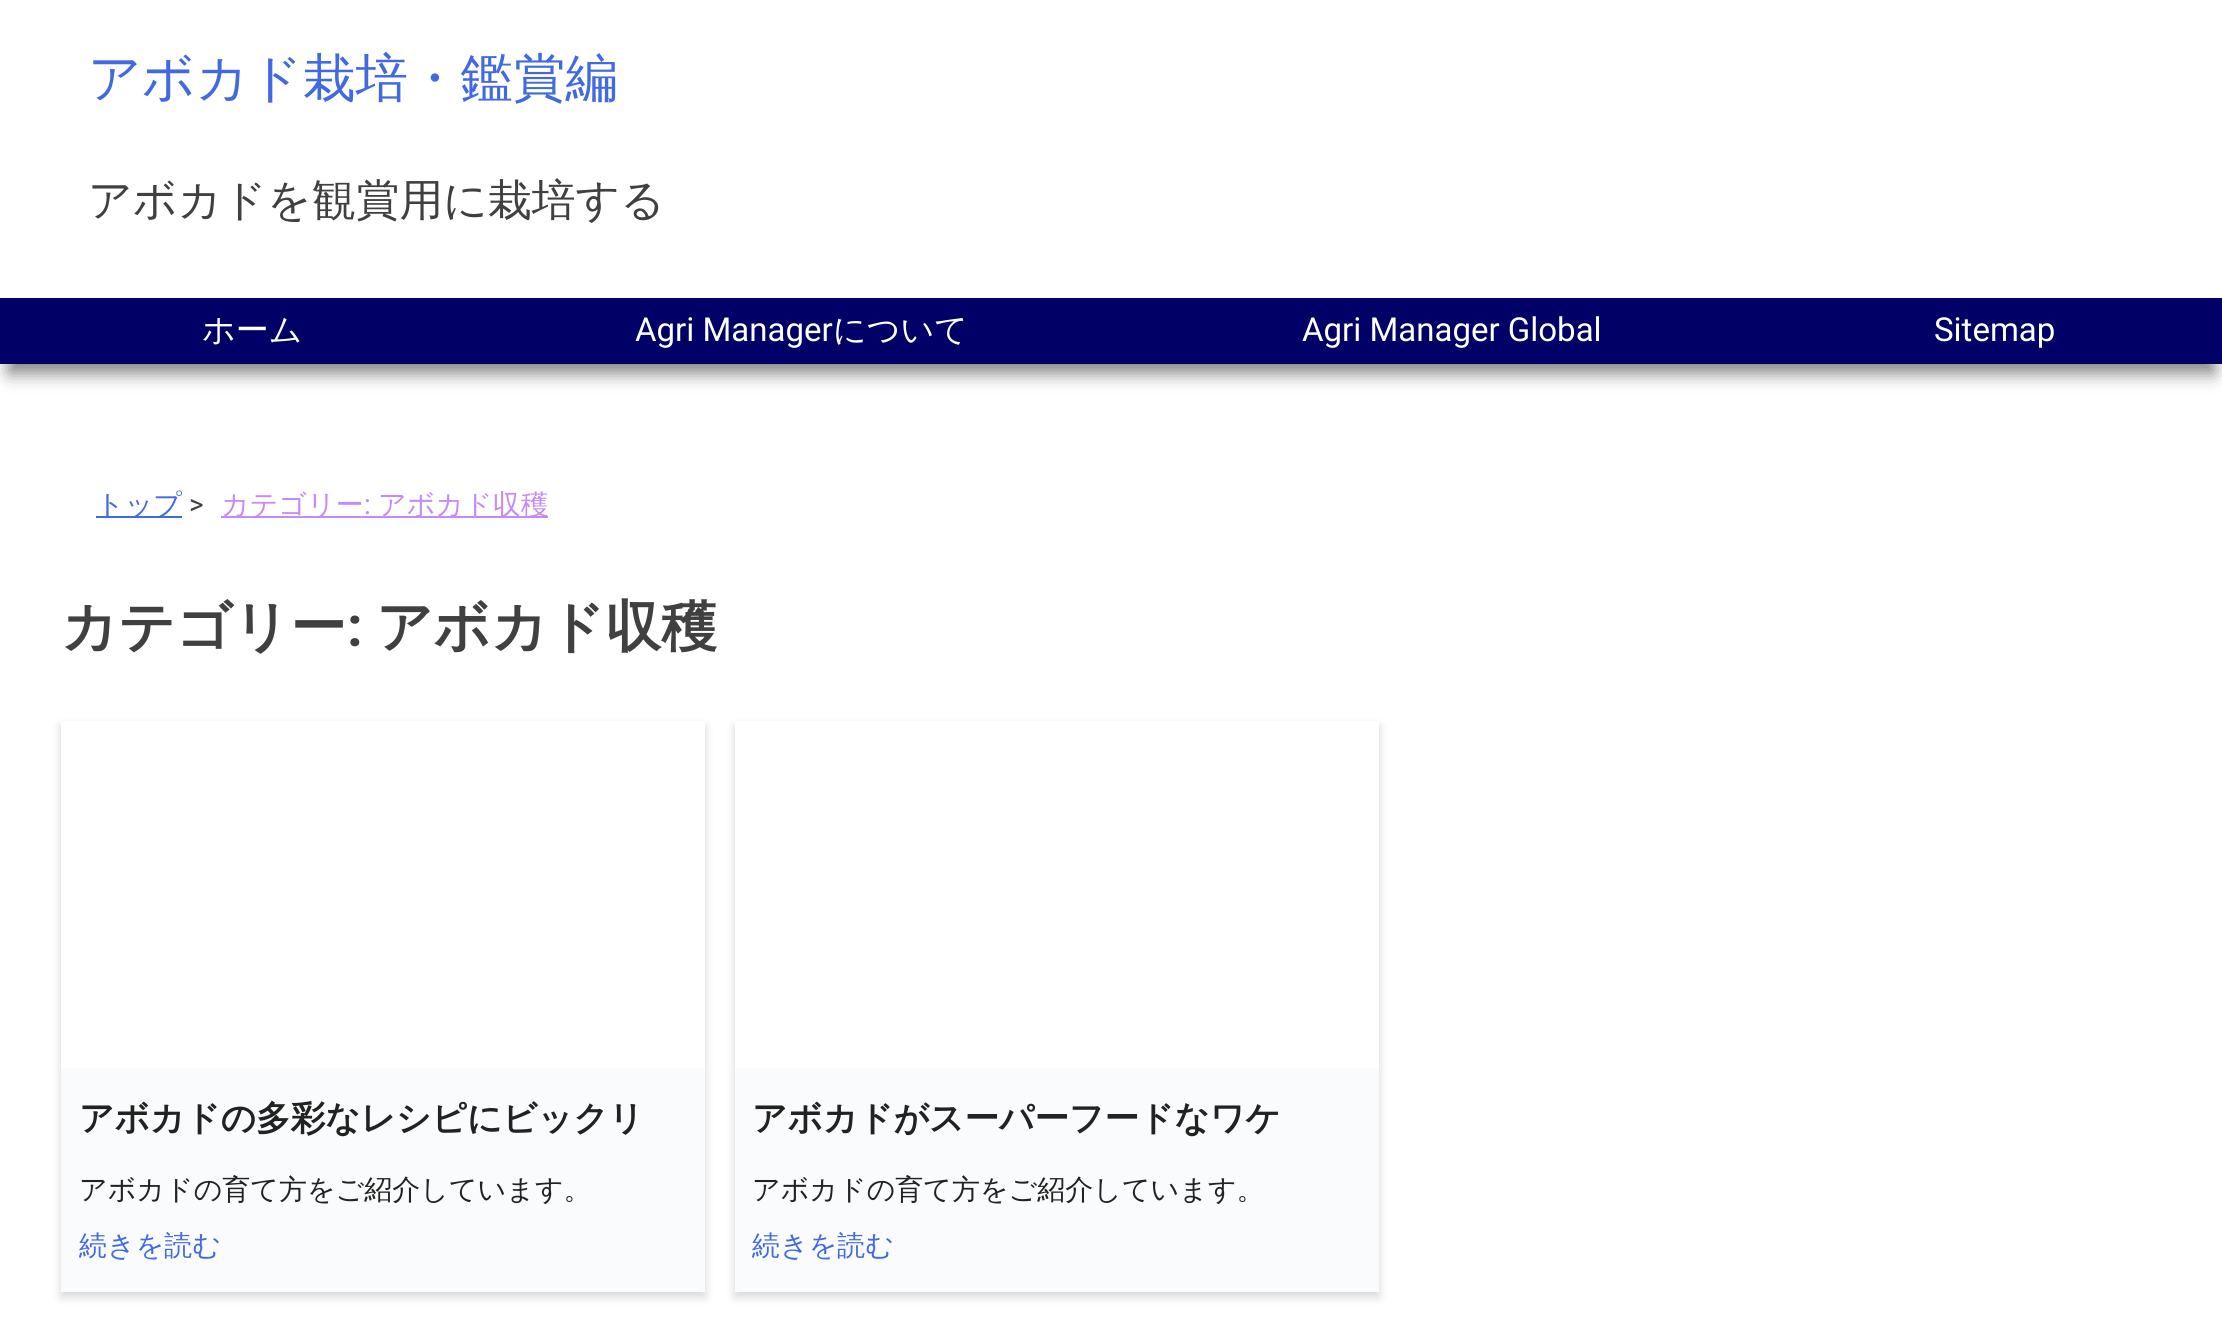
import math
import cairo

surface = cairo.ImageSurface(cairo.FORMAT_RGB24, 2222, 1333)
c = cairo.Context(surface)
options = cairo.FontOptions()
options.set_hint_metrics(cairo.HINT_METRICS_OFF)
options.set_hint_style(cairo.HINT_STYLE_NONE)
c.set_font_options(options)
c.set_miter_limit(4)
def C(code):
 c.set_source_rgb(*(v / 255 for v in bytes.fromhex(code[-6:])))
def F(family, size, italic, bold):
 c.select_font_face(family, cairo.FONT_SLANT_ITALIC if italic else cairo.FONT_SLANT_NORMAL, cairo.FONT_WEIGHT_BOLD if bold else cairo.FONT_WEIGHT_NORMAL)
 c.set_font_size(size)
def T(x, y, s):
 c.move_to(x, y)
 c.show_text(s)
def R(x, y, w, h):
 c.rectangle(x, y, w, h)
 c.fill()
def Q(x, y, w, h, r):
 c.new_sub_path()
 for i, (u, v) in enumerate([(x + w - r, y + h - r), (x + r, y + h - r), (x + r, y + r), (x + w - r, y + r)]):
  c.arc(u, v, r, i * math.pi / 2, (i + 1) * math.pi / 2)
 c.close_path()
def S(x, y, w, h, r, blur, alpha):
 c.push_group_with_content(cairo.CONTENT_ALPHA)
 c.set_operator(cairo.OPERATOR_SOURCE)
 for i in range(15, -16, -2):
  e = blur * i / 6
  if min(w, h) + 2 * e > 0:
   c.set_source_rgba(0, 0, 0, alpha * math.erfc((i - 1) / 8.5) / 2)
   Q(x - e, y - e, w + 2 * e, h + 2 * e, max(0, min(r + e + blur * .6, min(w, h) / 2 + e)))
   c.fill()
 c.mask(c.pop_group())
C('ffffff')
c.paint()
F('WenQuanYi Zen Hei Medium',52.5,0,0)
C('4169e1')
T(88,96,'アボカド栽培・鑑賞編')
F('WenQuanYi Zen Hei Medium',43.75,0,0)
C('404040')
T(88,215,'アボカドを観賞用に栽培する')
C('000000')
S(9,324,2205,49,0,9,.5)
C('000066')
R(0,298,2222,66)
F('WenQuanYi Zen Hei Medium',33,0,0)
C('ffffff')
T(202,341,'ホーム')
F('Roboto',33,0,0)
T(635,341,'Agri Manager')
F('WenQuanYi Zen Hei Medium',33,0,0)
T(833,341,'について')
F('Roboto',33,0,0)
T(1302,341,'Agri Manager Global')
T(1934,341,'Sitemap')
C('4169e1')
R(96,516,86,2)
F('WenQuanYi Zen Hei Medium',28,0,0)
T(96,514,'トップ')
F('Roboto',28,0,0)
C('404040')
T(189,514,'>')
C('c58af9')
R(221,516,327,2)
F('WenQuanYi Zen Hei Medium',28,0,0)
T(221,514,'カテゴリー')
F('Roboto',28,0,0)
T(364,514,':')
F('WenQuanYi Zen Hei Medium',28,0,0)
T(378,514,'アボカド収穫')
F('WenQuanYi Zen Hei',56,0,1)
C('404040')
T(61,646,'カテゴリー')
F('Roboto',56,0,1)
T(347,646,':')
F('WenQuanYi Zen Hei',56,0,1)
T(376,646,'アボカド収穫')
c.save()
c.set_fill_rule(cairo.FILL_RULE_EVEN_ODD)
c.new_path()
c.move_to(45,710)
c.line_to(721,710)
c.line_to(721,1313)
c.line_to(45,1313)
c.close_path()
c.move_to(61,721)
c.line_to(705,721)
c.line_to(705,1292)
c.line_to(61,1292)
c.close_path()
c.clip()
C('000000')
S(61,726,644,571,0,5,.16)
c.restore()
C('fafbfc')
R(61,1068,644,224)
F('WenQuanYi Zen Hei',34.6,0,1)
C('222222')
T(79,1130,'アボカドの多彩なレシピにビックリ')
F('WenQuanYi Zen Hei Medium',28,0,0)
T(79,1199,'アボカドの育て方をご紹介しています。')
C('4169e1')
T(79,1255,'続きを読む')
c.save()
c.set_fill_rule(cairo.FILL_RULE_EVEN_ODD)
c.new_path()
c.move_to(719,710)
c.line_to(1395,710)
c.line_to(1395,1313)
c.line_to(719,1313)
c.close_path()
c.move_to(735,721)
c.line_to(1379,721)
c.line_to(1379,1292)
c.line_to(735,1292)
c.close_path()
c.clip()
C('000000')
S(735,726,644,571,0,5,.16)
c.restore()
C('fafbfc')
R(735,1068,644,224)
F('WenQuanYi Zen Hei',34.6,0,1)
C('222222')
T(752,1130,'アボカドがスーパーフードなワケ')
F('WenQuanYi Zen Hei Medium',28,0,0)
T(752,1199,'アボカドの育て方をご紹介しています。')
C('4169e1')
T(752,1255,'続きを読む')
surface.write_to_png('o.png')
